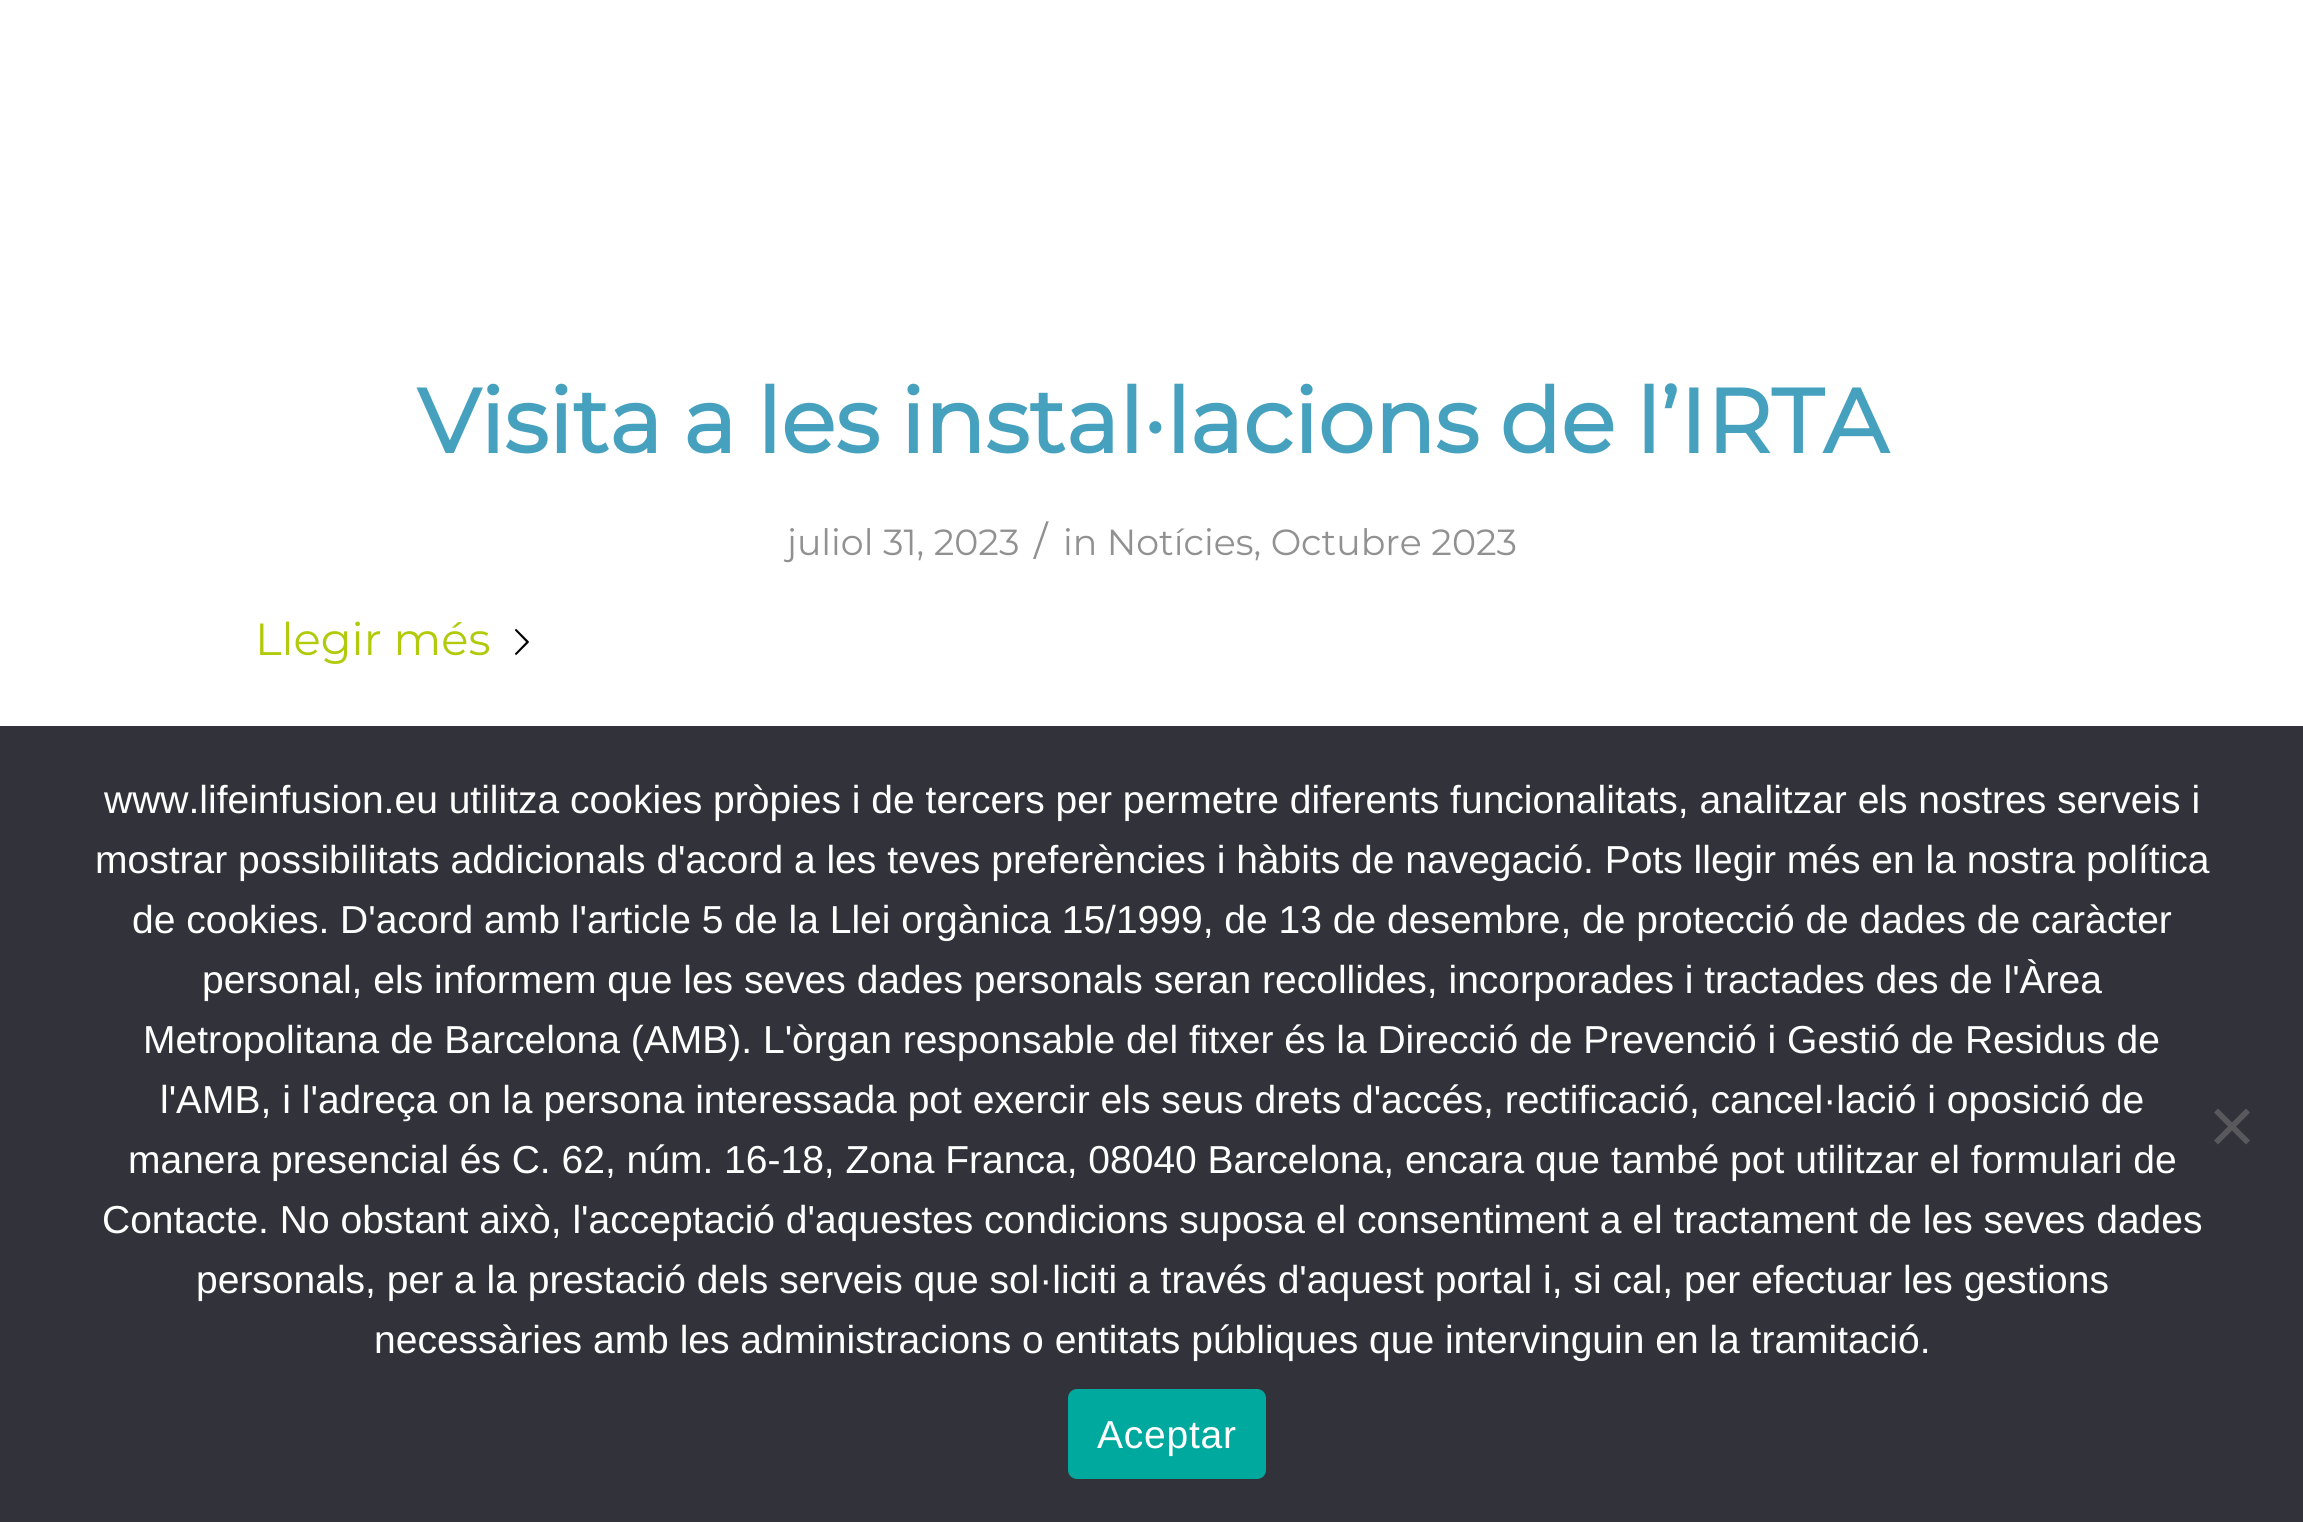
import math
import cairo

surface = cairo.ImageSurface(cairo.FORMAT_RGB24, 2303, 1522)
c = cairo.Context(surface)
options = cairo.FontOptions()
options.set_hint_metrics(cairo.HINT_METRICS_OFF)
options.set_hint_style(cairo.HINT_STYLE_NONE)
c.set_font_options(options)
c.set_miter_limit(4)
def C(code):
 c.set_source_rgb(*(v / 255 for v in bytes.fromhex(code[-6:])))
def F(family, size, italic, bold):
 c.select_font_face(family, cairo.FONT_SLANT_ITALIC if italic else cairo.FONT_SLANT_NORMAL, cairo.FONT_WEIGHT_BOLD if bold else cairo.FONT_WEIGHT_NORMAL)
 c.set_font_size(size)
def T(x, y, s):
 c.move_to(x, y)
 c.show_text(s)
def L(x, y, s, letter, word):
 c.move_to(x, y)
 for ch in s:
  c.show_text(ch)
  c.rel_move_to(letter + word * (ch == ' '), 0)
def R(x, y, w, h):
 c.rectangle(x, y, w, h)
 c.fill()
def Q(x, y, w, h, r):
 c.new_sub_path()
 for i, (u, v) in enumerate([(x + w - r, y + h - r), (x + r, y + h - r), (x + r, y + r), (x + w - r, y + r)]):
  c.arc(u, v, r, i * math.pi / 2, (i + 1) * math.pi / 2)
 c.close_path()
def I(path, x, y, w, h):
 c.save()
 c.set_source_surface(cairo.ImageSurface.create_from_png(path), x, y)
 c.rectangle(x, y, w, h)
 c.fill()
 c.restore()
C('ffffff')
c.paint()
F('Montserrat',90,0,1)
C('46a1bf')
L(417,453,'Visita a les instal·lacions de l’IRTA',0,-2.75)
F('Montserrat Thin',36.3,0,0)
C('919191')
T(787,555,'juliol 31, 2023')
F('Montserrat Thin',40,0,0)
T(1034,555,'/')
F('Montserrat Thin',36.3,0,0)
T(1063,555,'in Notícies, Octubre 2023')
F('Montserrat Thin',45,0,0)
C('b1ca0b')
T(255,655,'Llegir més')
I('1.png',515,629,14,26)
C('32323a')
R(0,726,2303,796)
F('Liberation Sans',39,0,0)
C('ffffff')
T(104,813,'www.lifeinfusion.eu utilitza cookies pròpies i de tercers per permetre diferents funcionalitats, analitzar els nostres serveis i')
T(95,873,'mostrar possibilitats addicionals d\'acord a les teves preferències i hàbits de navegació. Pots llegir més en la nostra política')
T(132,933,'de cookies. D\'acord amb l\'article 5 de la Llei orgànica 15/1999, de 13 de desembre, de protecció de dades de caràcter')
T(202,993,'personal, els informem que les seves dades personals seran recollides, incorporades i tractades des de l\'Àrea')
T(143,1053,'Metropolitana de Barcelona (AMB). L\'òrgan responsable del fitxer és la Direcció de Prevenció i Gestió de Residus de')
T(160,1113,'l\'AMB, i l\'adreça on la persona interessada pot exercir els seus drets d\'accés, rectificació, cancel·lació i oposició de')
T(128,1173,'manera presencial és C. 62, núm. 16-18, Zona Franca, 08040 Barcelona, encara que també pot utilitzar el formulari de')
T(102,1233,'Contacte. No obstant això, l\'acceptació d\'aquestes condicions suposa el consentiment a el tractament de les seves dades')
T(196,1293,'personals, per a la prestació dels serveis que sol·liciti a través d\'aquest portal i, si cal, per efectuar les gestions')
T(374,1353,'necessàries amb les administracions o entitats públiques que intervinguin en la tramitació.')
C('59595d')
c.new_path()
c.move_to(2246,1108.5)
c.line_to(2250,1112.5)
c.line_to(2218,1144.5)
c.line_to(2214,1140.5)
c.close_path()
c.fill()
c.new_path()
c.move_to(2214,1112.5)
c.line_to(2218,1108.5)
c.line_to(2250,1140.5)
c.line_to(2246,1144.5)
c.close_path()
c.fill()
C('00a99d')
Q(1068,1389,198,90,9)
c.fill()
C('ffffff')
L(1097,1448,'Aceptar',.75,0)
surface.write_to_png('o.png')
